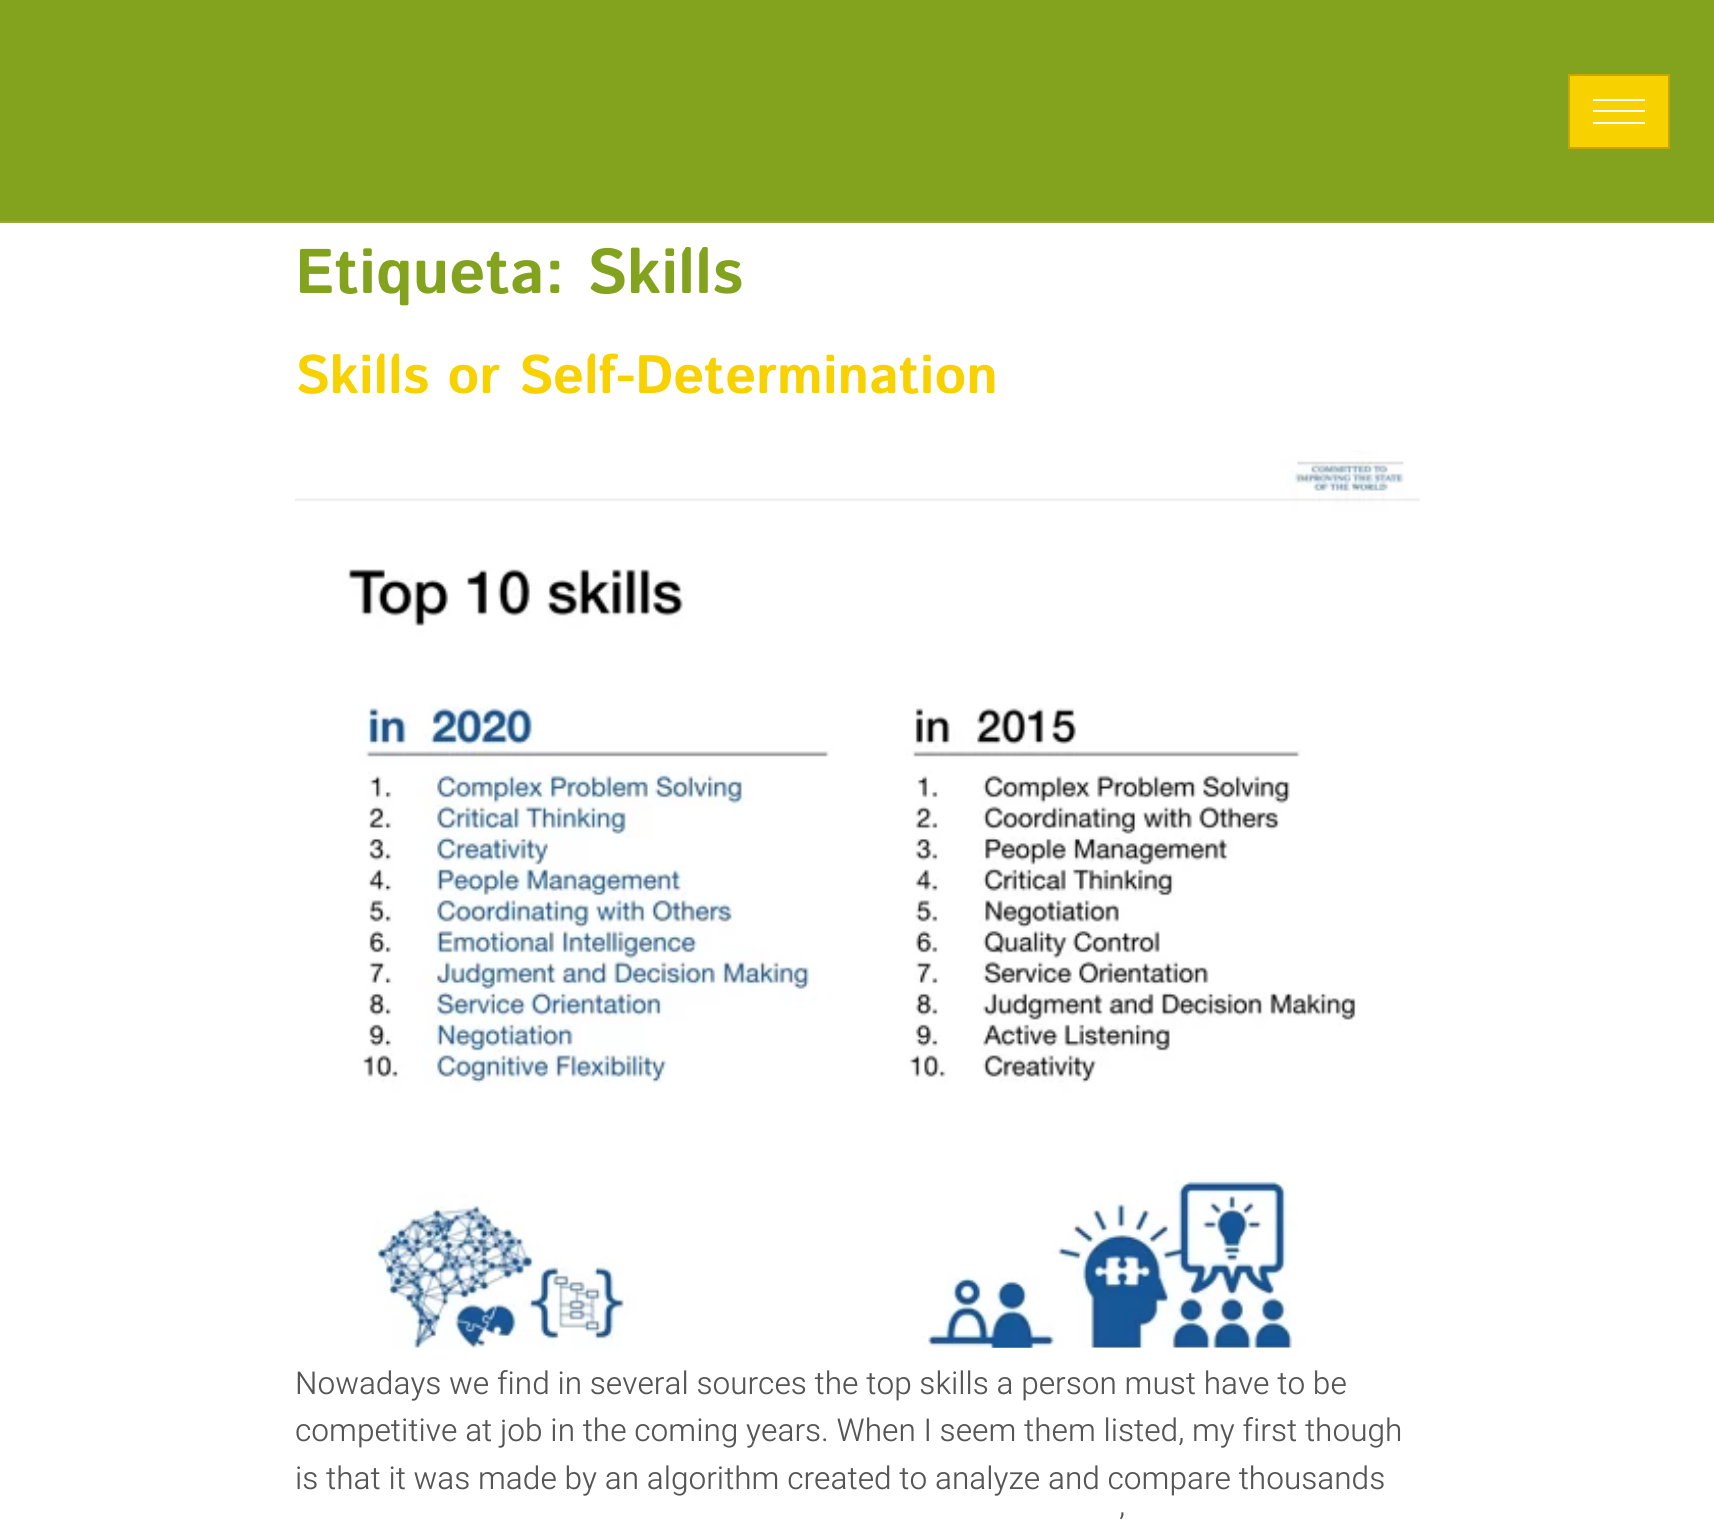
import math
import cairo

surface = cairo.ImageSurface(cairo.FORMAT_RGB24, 1714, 1520)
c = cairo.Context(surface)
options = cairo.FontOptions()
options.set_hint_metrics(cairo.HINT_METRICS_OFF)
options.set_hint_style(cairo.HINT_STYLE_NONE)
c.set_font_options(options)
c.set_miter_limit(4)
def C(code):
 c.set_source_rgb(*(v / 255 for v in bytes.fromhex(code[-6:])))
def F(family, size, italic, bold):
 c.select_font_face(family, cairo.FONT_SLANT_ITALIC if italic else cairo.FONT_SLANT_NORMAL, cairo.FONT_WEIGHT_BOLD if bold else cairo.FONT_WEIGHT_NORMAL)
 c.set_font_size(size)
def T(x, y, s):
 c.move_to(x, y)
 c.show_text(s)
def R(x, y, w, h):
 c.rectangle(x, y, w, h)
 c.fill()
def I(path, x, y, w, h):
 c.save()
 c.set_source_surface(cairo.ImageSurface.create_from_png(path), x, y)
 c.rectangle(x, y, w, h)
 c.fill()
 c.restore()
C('ffffff')
c.paint()
C('83a31f')
R(0,0,1714,221)
C('92ae3a')
R(0,221,1714,2)
C('f7d100')
c.rectangle(1569,75,100,73)
c.fill_preserve()
C('c6a700')
c.stroke()
C('ffffff')
R(1593,99,52,2)
R(1593,110,52,2)
R(1593,122,52,2)
F('Istok Web',63,0,1)
C('83a31f')
T(295,293,'Etiqueta: Skills')
F('Istok Web',54,0,1)
C('f7d100')
T(295,393,'Skills or Self-Determination')
I('1.png',294,450,1126,898)
F('Heebo Light',31.5,0,0)
C('555555')
T(295,1394,'Nowadays we find in several sources the top skills a person must have to be')
T(295,1441,'competitive at job in the coming years. When I seem them listed, my first though')
T(295,1489,'is that it was made by an algorithm created to analyze and compare thousands')
T(1119,1536,'’')
surface.write_to_png('o.png')
